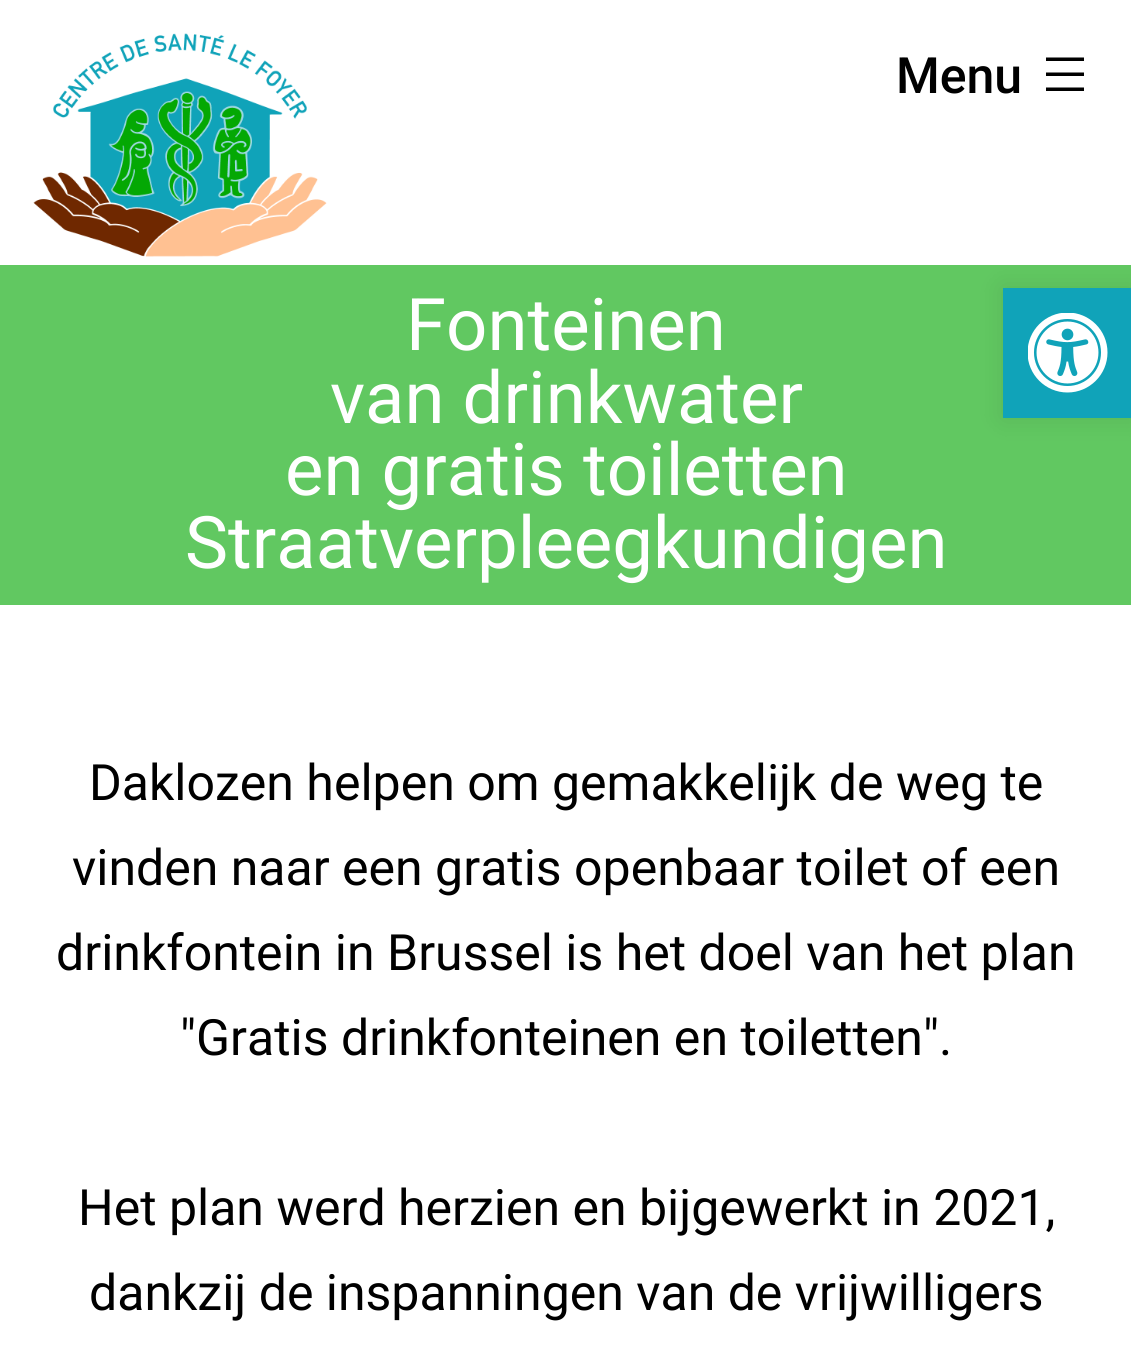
import math
import cairo

surface = cairo.ImageSurface(cairo.FORMAT_RGB24, 1131, 1366)
c = cairo.Context(surface)
options = cairo.FontOptions()
options.set_hint_metrics(cairo.HINT_METRICS_OFF)
options.set_hint_style(cairo.HINT_STYLE_NONE)
c.set_font_options(options)
c.set_miter_limit(4)
def C(code):
 c.set_source_rgb(*(v / 255 for v in bytes.fromhex(code[-6:])))
def F(family, size, italic, bold):
 c.select_font_face(family, cairo.FONT_SLANT_ITALIC if italic else cairo.FONT_SLANT_NORMAL, cairo.FONT_WEIGHT_BOLD if bold else cairo.FONT_WEIGHT_NORMAL)
 c.set_font_size(size)
def T(x, y, s):
 c.move_to(x, y)
 c.show_text(s)
def R(x, y, w, h):
 c.rectangle(x, y, w, h)
 c.fill()
def Q(x, y, w, h, r):
 c.new_sub_path()
 for i, (u, v) in enumerate([(x + w - r, y + h - r), (x + r, y + h - r), (x + r, y + r), (x + w - r, y + r)]):
  c.arc(u, v, r, i * math.pi / 2, (i + 1) * math.pi / 2)
 c.close_path()
def S(x, y, w, h, r, blur, alpha):
 c.push_group_with_content(cairo.CONTENT_ALPHA)
 c.set_operator(cairo.OPERATOR_SOURCE)
 for i in range(15, -16, -2):
  e = blur * i / 6
  if min(w, h) + 2 * e > 0:
   c.set_source_rgba(0, 0, 0, alpha * math.erfc((i - 1) / 8.5) / 2)
   Q(x - e, y - e, w + 2 * e, h + 2 * e, max(0, min(r + e + blur * .6, min(w, h) / 2 + e)))
   c.fill()
 c.mask(c.pop_group())
def I(path, x, y, w, h):
 c.save()
 c.set_source_surface(cairo.ImageSurface.create_from_png(path), x, y)
 c.rectangle(x, y, w, h)
 c.fill()
 c.restore()
C('ffffff')
c.paint()
I('1.png',33,33,294,224)
F('Roboto Medium',50,0,0)
C('000000')
T(896,93,'Menu')
c.set_fill_rule(cairo.FILL_RULE_EVEN_ODD)
c.new_path()
c.move_to(1046,57.5)
c.line_to(1084,57.5)
c.line_to(1084,61)
c.line_to(1046,61)
c.close_path()
c.move_to(1046,72.5)
c.line_to(1084,72.5)
c.line_to(1084,76)
c.line_to(1046,76)
c.close_path()
c.move_to(1084,87.5)
c.line_to(1046,87.5)
c.line_to(1046,91)
c.line_to(1084,91)
c.close_path()
c.fill()
C('61c861')
R(0,265,1131,340)
F('Roboto',72.5,0,0)
C('ffffff')
T(406,350,'Fonteinen')
T(330,423,'van drinkwater')
T(285,495,'en gratis toiletten')
T(185,568,'Straatverpleegkundigen')
F('Roboto',50,0,0)
C('000000')
T(89,800,'Daklozen helpen om gemakkelijk de weg te')
T(72,885,'vinden naar een gratis openbaar toilet of een')
T(56,970,'drinkfontein in Brussel is het doel van het plan')
T(180,1055,'"Gratis drinkfonteinen en toiletten".')
T(78,1225,'Het plan werd herzien en bijgewerkt in 2021,')
T(89,1310,'dankzij de inspanningen van de vrijwilligers')
C('000000')
S(1003,288,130,130,0,12.5,.1)
C('10a3b9')
R(1003,288,128,130)
I('2.png',1028,313,80,80)
surface.write_to_png('o.png')
